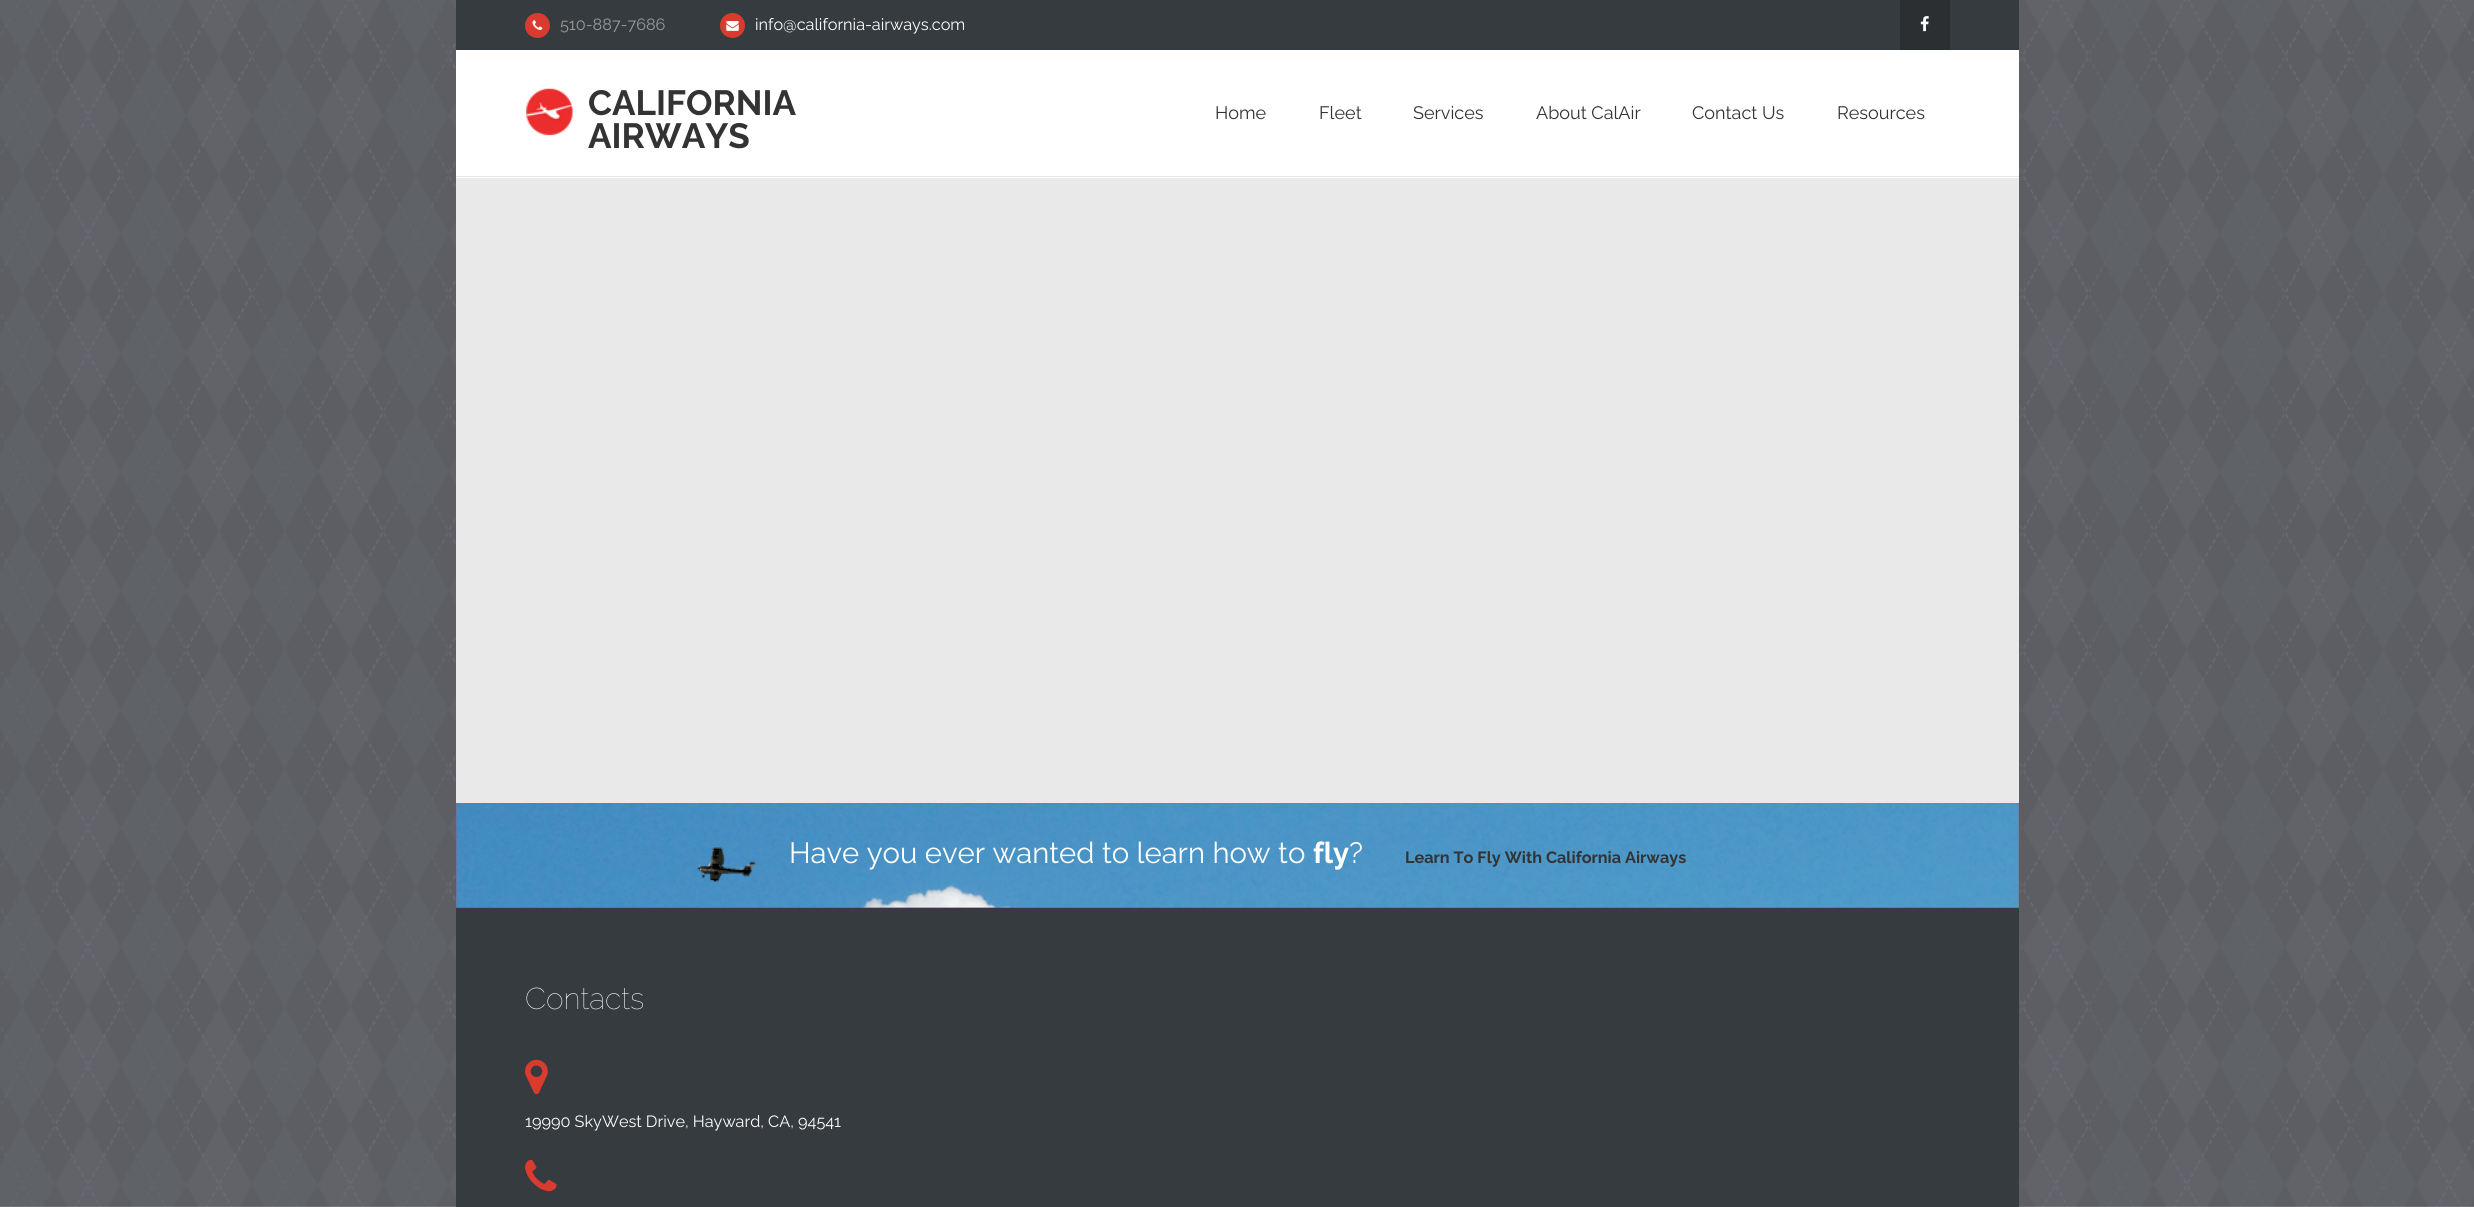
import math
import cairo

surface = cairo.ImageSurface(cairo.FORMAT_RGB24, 2474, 1207)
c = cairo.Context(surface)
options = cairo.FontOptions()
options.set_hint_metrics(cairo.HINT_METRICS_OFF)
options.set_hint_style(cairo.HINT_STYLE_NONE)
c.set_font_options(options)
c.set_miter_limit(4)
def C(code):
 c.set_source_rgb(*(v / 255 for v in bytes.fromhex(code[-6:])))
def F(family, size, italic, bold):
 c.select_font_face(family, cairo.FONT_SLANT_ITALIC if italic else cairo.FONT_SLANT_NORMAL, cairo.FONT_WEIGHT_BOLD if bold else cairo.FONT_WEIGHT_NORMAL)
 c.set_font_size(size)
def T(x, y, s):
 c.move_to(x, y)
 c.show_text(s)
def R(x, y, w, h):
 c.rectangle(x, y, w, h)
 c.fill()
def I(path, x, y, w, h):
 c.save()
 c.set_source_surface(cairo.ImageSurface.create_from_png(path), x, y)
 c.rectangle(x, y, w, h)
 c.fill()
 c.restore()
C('ffffff')
c.paint()
I('1.png',0,0,2474,1207)
C('ffffff')
R(456,50,1563,128)
C('363b3f')
R(456,0,1563,50)
C('db3a2e')
c.arc(537.5,25.5,12.5,0,2 * math.pi)
c.fill()
I('2.png',532,20,11,10)
F('Raleway',16.25,0,0)
C('999999')
T(560,30,'510-887-7686')
C('db3a2e')
c.new_path()
c.arc(732.5,25.5,12.5,0,2 * math.pi)
c.fill()
I('3.png',726,21,13,10)
C('ffffff')
T(755,30,'info@california-airways.com')
C('2b2f32')
R(1900,0,50,50)
I('4.png',1920,16,9,16)
C('e5e5e5')
R(456,176,1563,1)
I('5.png',526,88,47,48)
F('Raleway',35,0,1)
C('333333')
T(588,115,'CALIFORNIA')
T(588,148,'AIRWAYS')
F('Raleway',18,0,0)
T(1215,119,'Home')
T(1319,119,'Fleet')
T(1413,119,'Services')
T(1536,119,'About CalAir')
T(1692,119,'Contact Us')
T(1837,119,'Resources')
C('e9e9e9')
R(456,178,1563,625)
C('db3a2e')
R(456,803,1563,105)
I('6.png',456,803,1563,105)
F('Raleway',29.25,0,0)
C('ffffff')
T(789,863,'Have you ever wanted to learn how to')
F('Raleway',29.25,0,1)
T(1313,863,'fly')
F('Raleway',29.25,0,0)
T(1349,863,'?')
F('Raleway',16.25,0,1)
C('333333')
T(1405,863,'Learn To Fly With California Airways')
C('363b3f')
R(456,908,1563,299)
F('Raleway Thin',30,0,0)
C('ffffff')
T(525,1009,'Contacts')
I('7.png',525,1059,23,36)
F('Raleway',16.25,0,0)
T(525,1127,'19990 SkyWest Drive, Hayward, CA, 94541')
I('8.png',525,1159,32,33)
surface.write_to_png('o.png')
